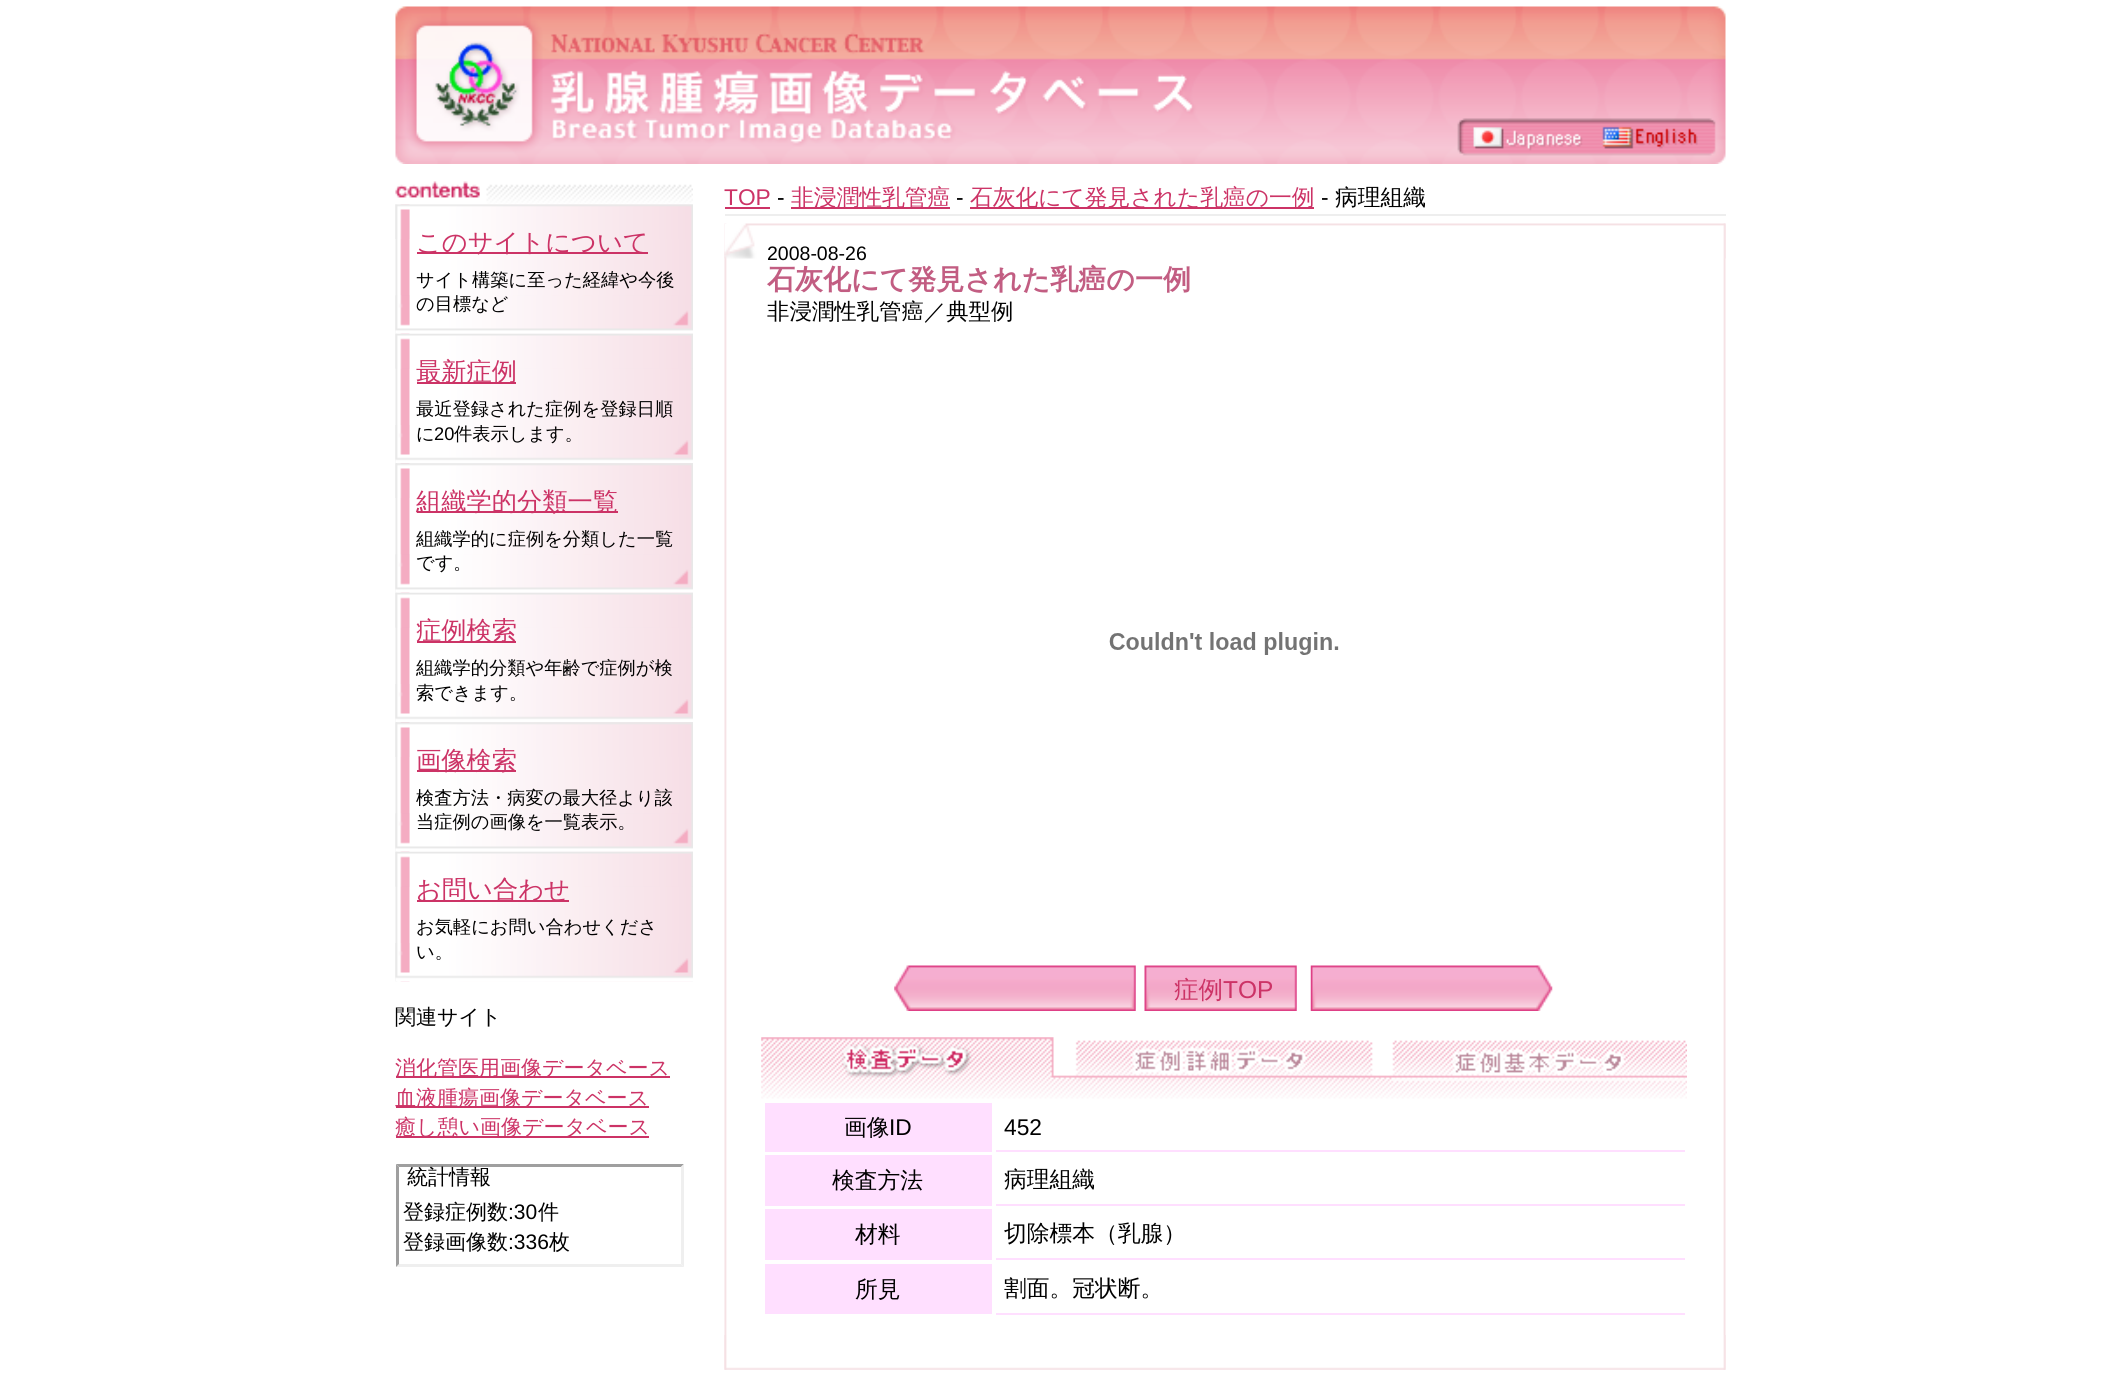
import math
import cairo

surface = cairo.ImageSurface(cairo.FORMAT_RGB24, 2119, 1394)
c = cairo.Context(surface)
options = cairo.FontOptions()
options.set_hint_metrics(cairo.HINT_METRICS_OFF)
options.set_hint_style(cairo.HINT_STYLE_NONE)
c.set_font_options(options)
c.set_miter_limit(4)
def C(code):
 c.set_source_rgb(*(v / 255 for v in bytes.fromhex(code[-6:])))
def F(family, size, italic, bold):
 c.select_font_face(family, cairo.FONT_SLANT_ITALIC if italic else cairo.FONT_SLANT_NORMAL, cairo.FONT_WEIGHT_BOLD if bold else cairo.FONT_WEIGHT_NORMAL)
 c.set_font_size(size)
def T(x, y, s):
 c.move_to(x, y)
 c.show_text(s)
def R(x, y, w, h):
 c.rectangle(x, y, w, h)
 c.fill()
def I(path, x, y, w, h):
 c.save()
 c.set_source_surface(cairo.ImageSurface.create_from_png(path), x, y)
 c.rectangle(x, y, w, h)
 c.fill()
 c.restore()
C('ffffff')
c.paint()
I('1.png',395,6,1331,158)
I('3.png',395,204,298,778)
I('4.png',395,204,298,35)
I('2.png',395,181,298,24)
C('cc3366')
R(417,252,231,2)
F('WenQuanYi Zen Hei Medium',25.25,0,0)
T(416,251,'このサイトについて')
I('5.png',395,295,298,39)
F('WenQuanYi Zen Hei Medium',18.25,0,0)
C('000000')
T(416,286,'サイト構築に至った経緯や今後')
T(416,310,'の目標など')
I('6.png',395,333,298,36)
C('cc3366')
R(417,382,99,2)
F('WenQuanYi Zen Hei Medium',25.25,0,0)
T(416,380,'最新症例')
I('7.png',395,425,298,39)
F('WenQuanYi Zen Hei Medium',18.25,0,0)
C('000000')
T(416,415,'最近登録された症例を登録日順')
T(416,440,'に')
F('Liberation Sans',18.25,0,0)
T(434,440,'20')
F('WenQuanYi Zen Hei Medium',18.25,0,0)
T(454,440,'件表示します。')
I('8.png',395,463,298,35)
C('cc3366')
R(417,511,201,2)
F('WenQuanYi Zen Hei Medium',25.25,0,0)
T(416,510,'組織学的分類一覧')
I('5.png',395,554,298,39)
F('WenQuanYi Zen Hei Medium',18.25,0,0)
C('000000')
T(416,545,'組織学的に症例を分類した一覧')
T(416,569,'です。')
I('6.png',395,592,298,36)
C('cc3366')
R(417,641,99,2)
F('WenQuanYi Zen Hei Medium',25.25,0,0)
T(416,639,'症例検索')
I('9.png',395,684,298,39)
F('WenQuanYi Zen Hei Medium',18.25,0,0)
C('000000')
T(416,674,'組織学的分類や年齢で症例が検')
T(416,699,'索できます。')
I('8.png',395,722,298,35)
C('cc3366')
R(417,770,99,2)
F('WenQuanYi Zen Hei Medium',25.25,0,0)
T(416,769,'画像検索')
I('5.png',395,813,298,39)
F('WenQuanYi Zen Hei Medium',18.25,0,0)
C('000000')
T(416,804,'検査方法・病変の最大径より該')
T(416,828,'当症例の画像を一覧表示。')
I('6.png',395,851,298,36)
C('cc3366')
R(417,900,152,2)
F('WenQuanYi Zen Hei Medium',25.25,0,0)
T(416,898,'お問い合わせ')
I('10.png',395,943,298,39)
F('WenQuanYi Zen Hei Medium',18.25,0,0)
C('000000')
T(416,933,'お気軽にお問い合わせくださ')
T(416,958,'い。')
F('WenQuanYi Zen Hei Medium',21,0,0)
T(395,1024,'関連サイト')
C('cc3366')
R(396,1076,274,2)
T(395,1075,'消化管医用画像データベース')
R(396,1106,253,2)
T(395,1105,'血液腫瘍画像データベース')
R(396,1136,253,2)
T(395,1134,'癒し憩い画像データベース')
C('9f9f9f')
c.new_path()
c.move_to(396,1164)
c.line_to(684,1164)
c.line_to(681,1167)
c.line_to(399,1167)
c.close_path()
c.fill()
C('efefef')
c.new_path()
c.move_to(684,1164)
c.line_to(684,1267)
c.line_to(681,1264)
c.line_to(681,1167)
c.close_path()
c.fill()
c.new_path()
c.move_to(684,1267)
c.line_to(396,1267)
c.line_to(399,1264)
c.line_to(681,1264)
c.close_path()
c.fill()
C('9f9f9f')
c.new_path()
c.move_to(396,1267)
c.line_to(396,1164)
c.line_to(399,1167)
c.line_to(399,1264)
c.close_path()
c.fill()
C('000000')
T(407,1184,'統計情報')
T(403,1219,'登録症例数')
F('Liberation Sans',21,0,0)
T(508,1219,':30')
F('WenQuanYi Zen Hei Medium',21,0,0)
T(538,1219,'件')
T(403,1249,'登録画像数')
F('Liberation Sans',21,0,0)
T(508,1249,':336')
F('WenQuanYi Zen Hei Medium',21,0,0)
T(549,1249,'枚')
C('eeeeee')
R(725,214,1001,2)
F('Liberation Sans',22.75,0,0)
C('cc3366')
T(724,205,'TOP')
R(725,207,45,2)
C('000000')
T(777,205,'-')
C('cc3366')
R(791,207,159,2)
F('WenQuanYi Zen Hei Medium',22.75,0,0)
T(791,205,'非浸潤性乳管癌')
F('Liberation Sans',22.75,0,0)
C('000000')
T(956,205,'-')
C('cc3366')
R(970,207,344,2)
F('WenQuanYi Zen Hei Medium',22.75,0,0)
T(970,205,'石灰化にて発見された乳癌の一例')
F('Liberation Sans',22.75,0,0)
C('000000')
T(1321,205,'-')
F('WenQuanYi Zen Hei Medium',22.75,0,0)
T(1335,205,'病理組織')
I('11.png',724,223,1002,1147)
I('12.png',724,223,1002,36)
F('Liberation Sans',19.5,0,0)
T(767,260,'2008-08-26')
F('WenQuanYi Zen Hei',28,0,1)
C('c25d82')
T(767,289,'石灰化にて発見された乳癌の一例')
F('WenQuanYi Zen Hei Medium',22.4,0,0)
C('000000')
T(767,319,'非浸潤性乳管癌／典型例')
I('13.png',1109,632,230,23)
I('14.png',894,965,242,46)
I('15.png',1144,965,153,46)
F('WenQuanYi Zen Hei Medium',24.5,0,0)
C('cc3366')
T(1174,998,'症例')
F('Liberation Sans',24.5,0,0)
T(1223,998,'TOP')
I('16.png',1310,965,243,46)
I('17.png',761,1037,926,62)
C('ffdfff')
R(765,1103,227,49)
F('WenQuanYi Zen Hei Medium',22.75,0,0)
C('000000')
T(844,1135,'画像')
F('Liberation Sans',22.75,0,0)
T(889,1135,'ID')
C('ffdfff')
R(996,1150,689,2)
C('000000')
T(1004,1135,'452')
C('ffdfff')
R(765,1155,227,51)
F('WenQuanYi Zen Hei Medium',22.75,0,0)
C('000000')
T(832,1188,'検査方法')
C('ffdfff')
R(996,1204,689,2)
C('000000')
T(1004,1187,'病理組織')
C('ffdfff')
R(765,1209,227,51)
C('000000')
T(855,1242,'材料')
C('ffdfff')
R(996,1258,689,2)
C('000000')
T(1004,1241,'切除標本（乳腺）')
C('ffdfff')
R(765,1264,227,50)
C('000000')
T(855,1297,'所見')
C('ffdfff')
R(996,1313,689,2)
C('000000')
T(1004,1296,'割面。冠状断。')
I('18.png',724,1335,1002,35)
surface.write_to_png('o.png')
